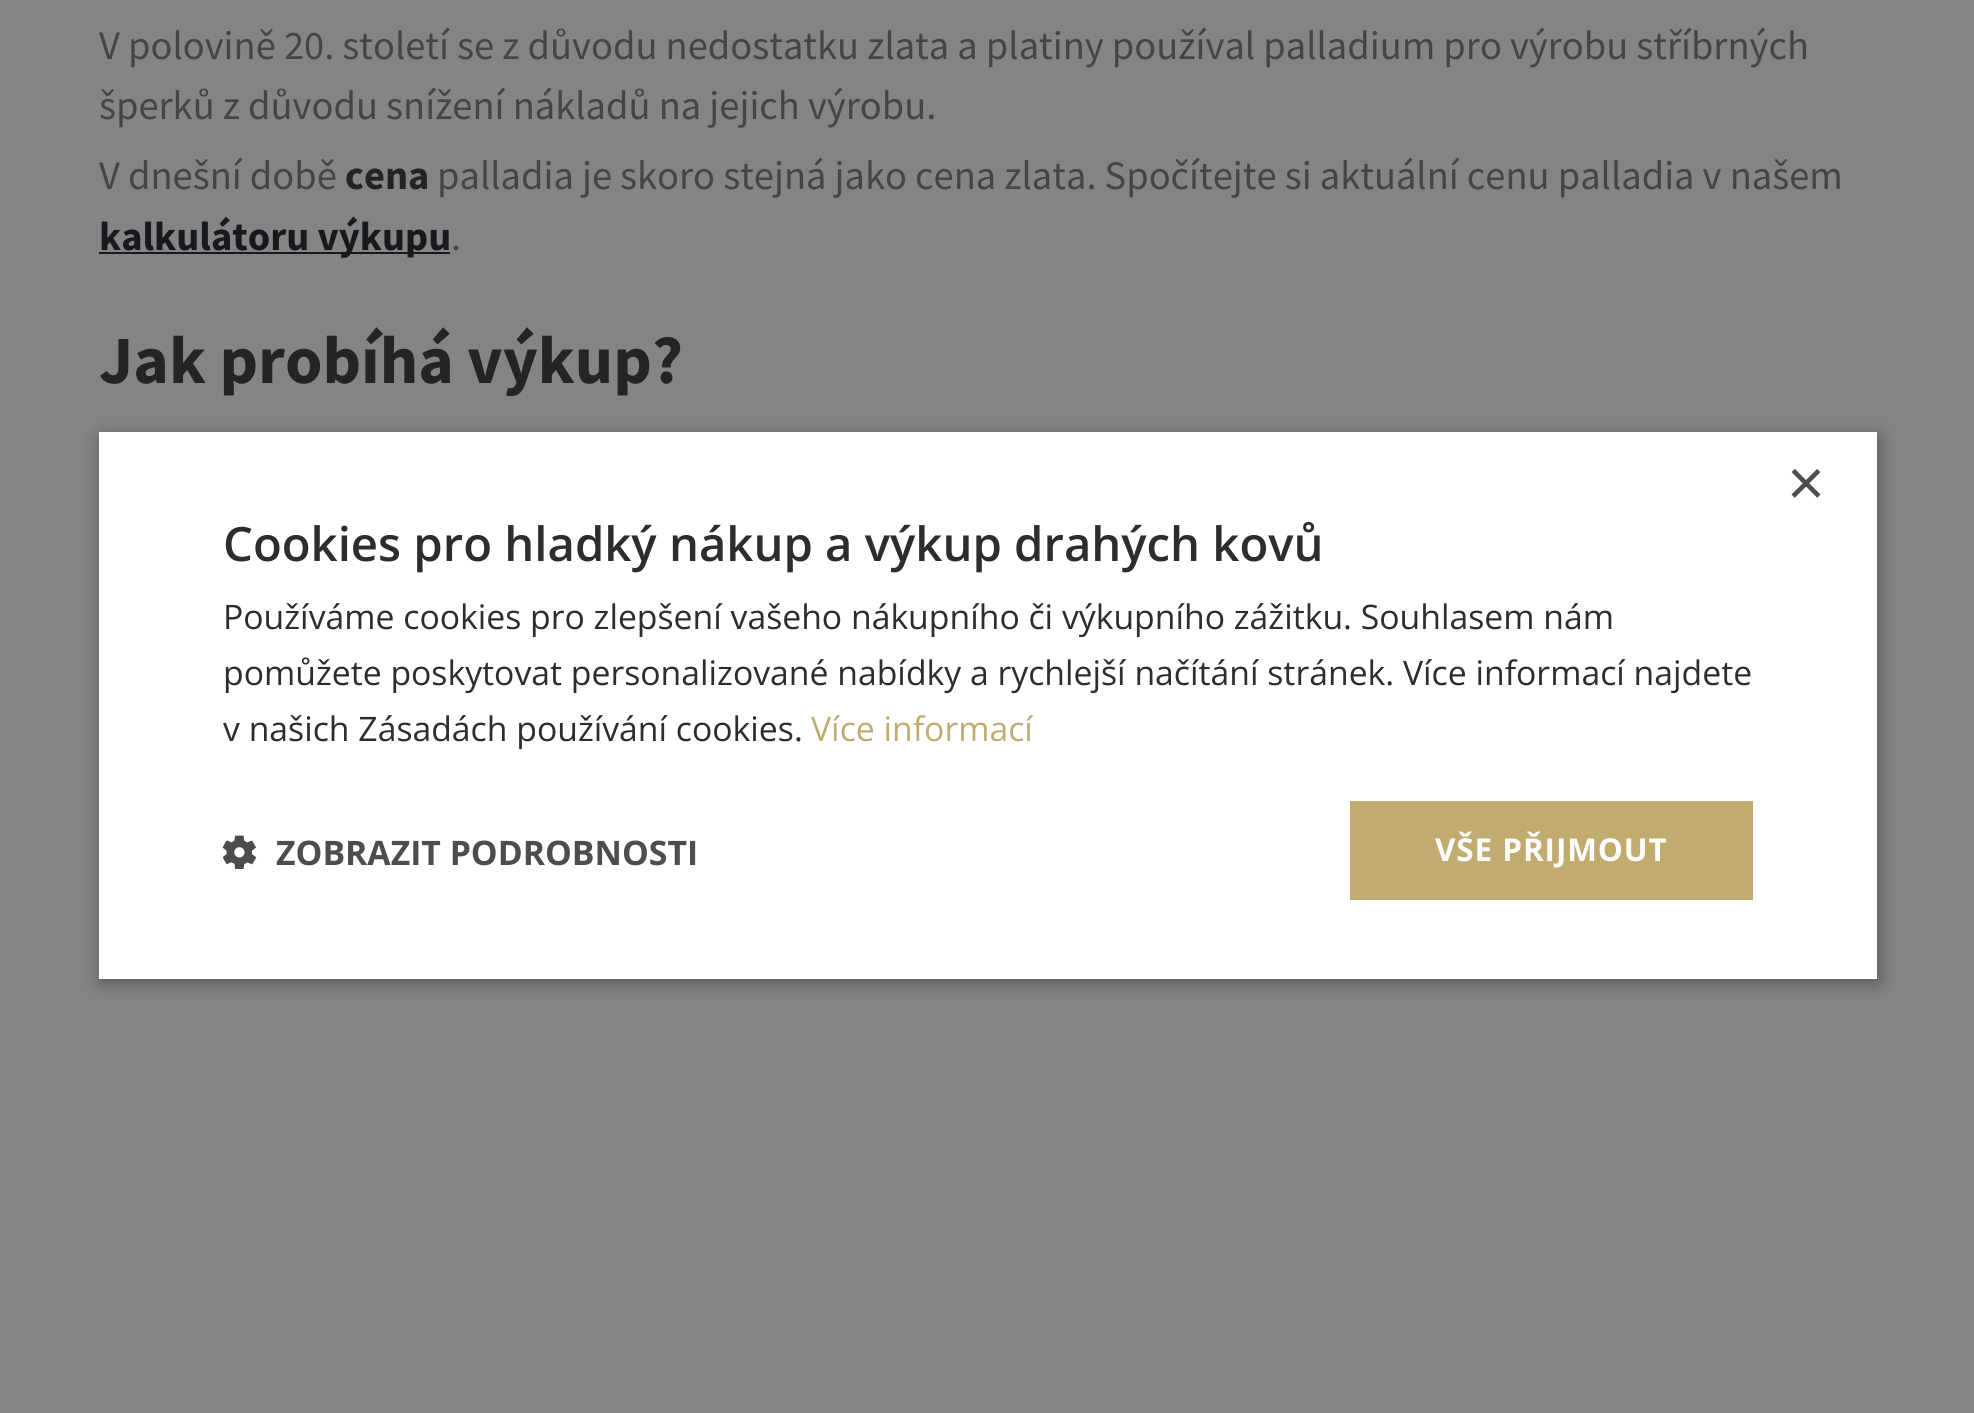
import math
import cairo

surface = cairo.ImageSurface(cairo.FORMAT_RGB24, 1974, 1413)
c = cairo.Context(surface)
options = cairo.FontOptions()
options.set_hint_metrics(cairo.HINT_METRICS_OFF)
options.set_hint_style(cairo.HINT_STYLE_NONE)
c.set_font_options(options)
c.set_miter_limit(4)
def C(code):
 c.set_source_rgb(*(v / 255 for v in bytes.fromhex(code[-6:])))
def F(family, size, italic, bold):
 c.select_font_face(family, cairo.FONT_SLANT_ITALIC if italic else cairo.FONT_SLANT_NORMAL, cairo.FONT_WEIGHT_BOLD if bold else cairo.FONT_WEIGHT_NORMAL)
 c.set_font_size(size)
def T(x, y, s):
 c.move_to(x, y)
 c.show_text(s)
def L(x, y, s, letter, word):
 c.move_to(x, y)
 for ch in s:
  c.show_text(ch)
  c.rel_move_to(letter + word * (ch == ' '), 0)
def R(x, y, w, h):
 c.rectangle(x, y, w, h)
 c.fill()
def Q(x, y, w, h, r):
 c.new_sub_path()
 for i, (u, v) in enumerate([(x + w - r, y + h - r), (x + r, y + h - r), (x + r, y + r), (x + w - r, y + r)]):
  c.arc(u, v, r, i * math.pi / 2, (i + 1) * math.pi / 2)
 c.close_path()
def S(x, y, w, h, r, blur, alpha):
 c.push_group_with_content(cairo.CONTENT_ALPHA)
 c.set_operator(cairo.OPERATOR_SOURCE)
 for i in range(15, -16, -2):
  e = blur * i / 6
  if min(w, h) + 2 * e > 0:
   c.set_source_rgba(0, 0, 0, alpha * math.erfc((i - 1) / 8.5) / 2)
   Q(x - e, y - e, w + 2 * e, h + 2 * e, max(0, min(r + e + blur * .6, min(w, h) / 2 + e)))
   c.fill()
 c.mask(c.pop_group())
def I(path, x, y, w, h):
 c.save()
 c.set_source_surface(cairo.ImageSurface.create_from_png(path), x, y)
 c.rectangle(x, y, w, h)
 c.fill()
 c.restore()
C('848484')
c.paint()
F('Source Sans Pro',40.5,0,0)
C('454545')
T(99,59,'V polovině 20. století se z důvodu nedostatku zlata a platiny používal palladium pro výrobu stříbrných')
T(99,119,'šperků z důvodu snížení nákladů na jejich výrobu.')
T(99,189,'V dnešní době')
F('Source Sans Pro',40.5,0,1)
C('242424')
T(345,189,'cena')
F('Source Sans Pro',40.5,0,0)
C('454545')
T(437,189,'palladia je skoro stejná jako cena zlata. Spočítejte si aktuální cenu palladia v našem')
C('161a1f')
R(99,252,351,2)
F('Source Sans Pro',40.5,0,1)
T(99,250,'kalkulátoru výkupu')
F('Source Sans Pro',40.5,0,0)
C('454545')
T(451,250,'.')
F('Source Sans Pro',67.5,0,1)
C('242424')
T(99,383,'Jak probíhá výkup?')
C('000000')
S(101,437,1778,546,0,9,.35)
C('ffffff')
R(99,432,1778,547)
F('Liberation Sans',65,0,0)
C('4d4d4d')
T(1787,505,'×')
F('Open Sans SemiBold',47.25,0,0)
C('2d2d2d')
T(223,561,'Cookies pro hladký nákup a výkup drahých kovů')
F('Open Sans',33.75,0,0)
T(223,629,'Používáme cookies pro zlepšení vašeho nákupního či výkupního zážitku. Souhlasem nám')
T(223,685,'pomůžete poskytovat personalizované nabídky a rychlejší načítání stránek. Více informací najdete')
T(223,741,'v našich Zásadách používání cookies.')
C('c1ab6f')
T(811,741,'Více informací')
I('1.png',223,835,34,34)
F('Open Sans',33.75,0,1)
C('4d4d4d')
T(276,865,'ZOBRAZIT PODROBNOSTI')
C('c1ab6f')
R(1350,801,403,99)
F('Open Sans',31.5,0,1)
C('ffffff')
L(1435,861,'VŠE PŘIJMOUT',.9,0)
surface.write_to_png('o.png')
